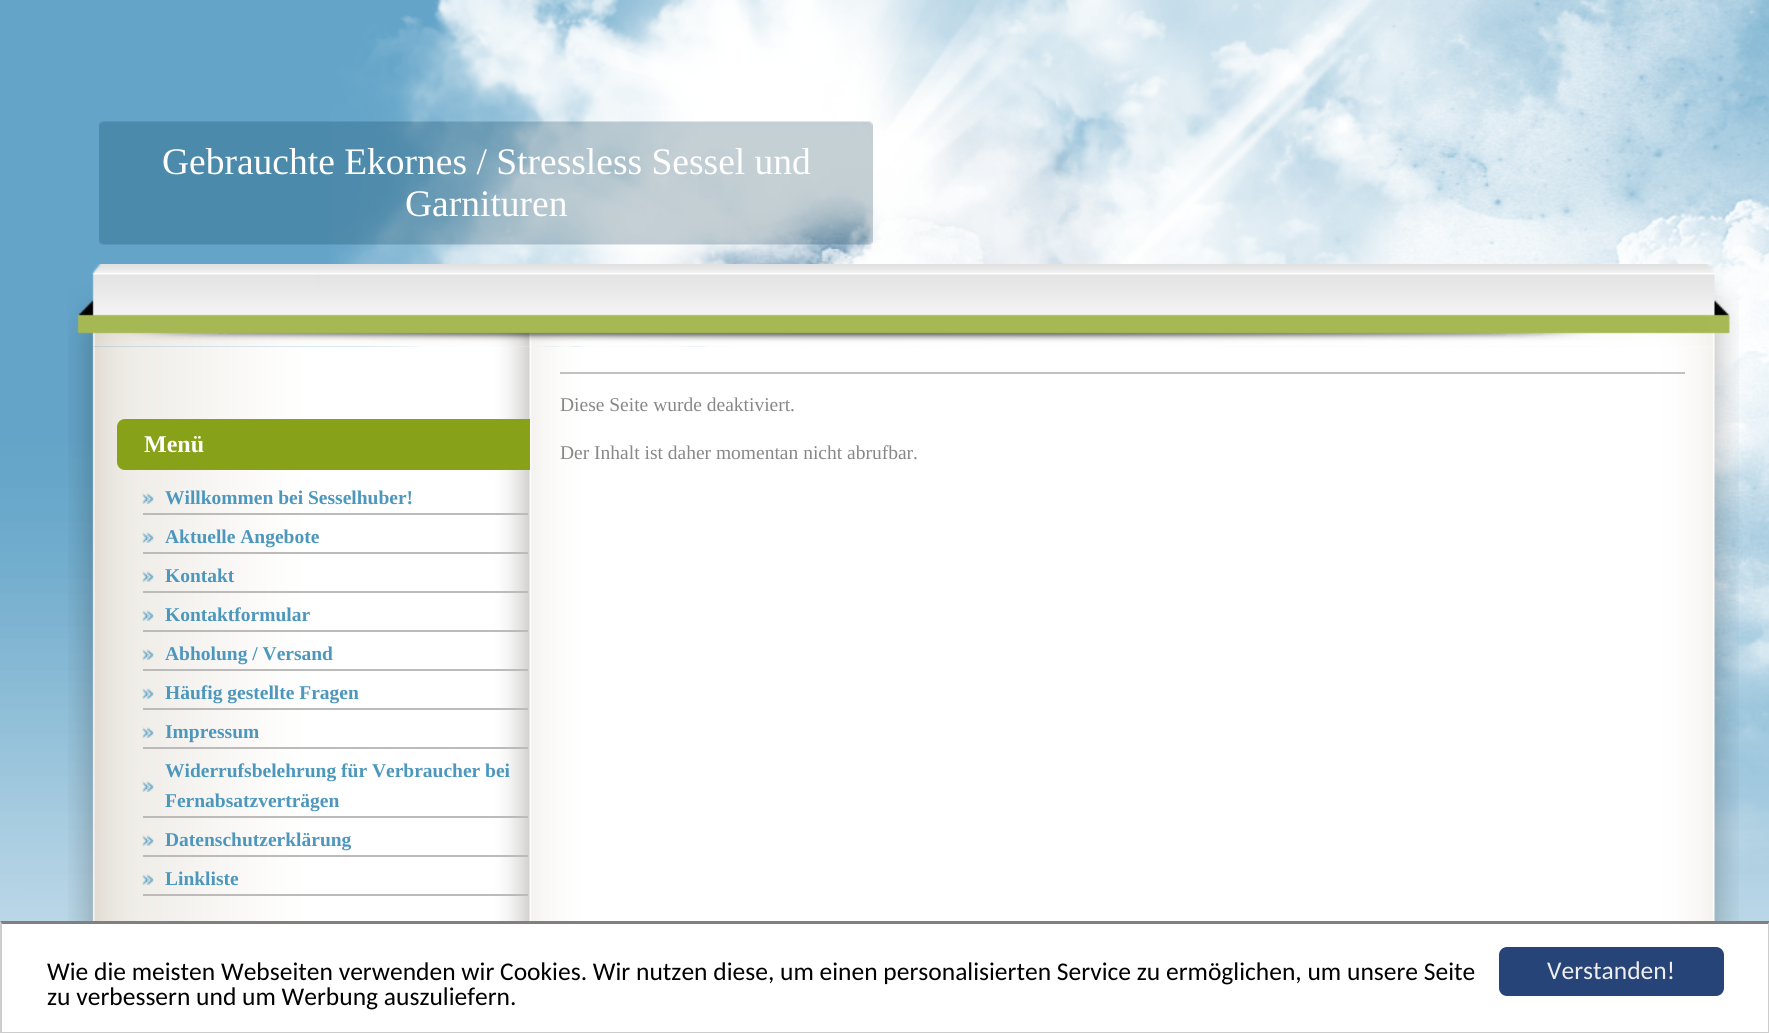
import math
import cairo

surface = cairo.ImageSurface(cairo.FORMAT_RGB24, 1769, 1033)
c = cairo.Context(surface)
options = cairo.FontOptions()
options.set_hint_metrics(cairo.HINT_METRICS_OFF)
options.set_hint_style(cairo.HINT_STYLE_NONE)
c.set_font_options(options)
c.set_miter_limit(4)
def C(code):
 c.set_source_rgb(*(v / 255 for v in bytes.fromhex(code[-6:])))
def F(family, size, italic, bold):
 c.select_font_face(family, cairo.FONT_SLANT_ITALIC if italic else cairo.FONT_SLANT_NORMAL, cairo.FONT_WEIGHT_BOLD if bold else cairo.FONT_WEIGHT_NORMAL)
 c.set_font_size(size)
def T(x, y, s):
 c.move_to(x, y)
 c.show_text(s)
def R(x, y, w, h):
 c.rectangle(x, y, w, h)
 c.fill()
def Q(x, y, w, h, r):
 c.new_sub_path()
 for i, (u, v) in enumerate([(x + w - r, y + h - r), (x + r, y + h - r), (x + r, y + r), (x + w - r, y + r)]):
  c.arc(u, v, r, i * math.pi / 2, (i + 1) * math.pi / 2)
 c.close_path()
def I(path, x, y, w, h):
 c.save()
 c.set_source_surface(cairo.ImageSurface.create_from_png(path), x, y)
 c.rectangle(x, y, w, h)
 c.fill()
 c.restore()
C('ffffff')
c.paint()
I('1.png',0,0,1769,924)
I('2.png',329,0,1440,876)
I('3.png',99,121,774,5)
c.set_source_rgba(0,0.188,0.286,0.23)
R(99,126,774,114)
F('Liberation Serif',37.5,0,0)
C('ffffff')
T(162,174,'Gebrauchte Ekornes / Stressless Sessel und')
T(405,216,'Garnituren')
I('4.png',99,240,774,5)
I('5.png',68,264,1671,83)
I('6.png',68,346,1671,575)
C('c1c1c1')
R(560,372,1125,2)
F('Liberation Serif',19.5,0,0)
C('888888')
T(560,411,'Diese Seite wurde deaktiviert.')
T(560,459,'Der Inhalt ist daher momentan nicht abrufbar.')
C('87a119')
c.new_path()
c.move_to(125,419)
c.line_to(530,419)
c.line_to(530,470)
c.line_to(125,470)
c.curve_to(120.5,470,117,466.5,117,462)
c.line_to(117,427)
c.curve_to(117,422.5,120.5,419,125,419)
c.close_path()
c.fill()
F('Liberation Serif',24,0,1)
C('ffffff')
T(144,452,'Menü')
I('7.png',142,493,12,11)
C('bcbbb9')
R(143,513,385,2)
F('Liberation Serif',19.5,0,1)
C('4d97bd')
T(165,504,'Willkommen bei Sesselhuber!')
I('7.png',142,532,12,11)
C('bcbbb9')
R(143,552,385,2)
C('4d97bd')
T(165,543,'Aktuelle Angebote')
I('7.png',142,571,12,11)
C('bcbbb9')
R(143,591,385,2)
C('4d97bd')
T(165,582,'Kontakt')
I('7.png',142,610,12,11)
C('bcbbb9')
R(143,630,385,2)
C('4d97bd')
T(165,621,'Kontaktformular')
I('7.png',142,649,12,11)
C('bcbbb9')
R(143,669,385,2)
C('4d97bd')
T(165,660,'Abholung / Versand')
I('7.png',142,688,12,11)
C('bcbbb9')
R(143,708,385,2)
C('4d97bd')
T(165,699,'Häufig gestellte Fragen')
I('7.png',142,727,12,11)
C('bcbbb9')
R(143,747,385,2)
C('4d97bd')
T(165,738,'Impressum')
I('7.png',142,781,12,11)
C('bcbbb9')
R(143,816,385,2)
C('4d97bd')
T(165,777,'Widerrufsbelehrung für Verbraucher bei')
T(165,807,'Fernabsatzverträgen')
I('7.png',142,835,12,11)
C('bcbbb9')
R(143,855,385,2)
C('4d97bd')
T(165,846,'Datenschutzerklärung')
I('7.png',142,874,12,11)
C('bcbbb9')
R(143,894,385,2)
C('4d97bd')
T(165,885,'Linkliste')
C('808080')
c.new_path()
c.move_to(0,921)
c.line_to(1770,921)
c.line_to(1768,924)
c.line_to(2,924)
c.close_path()
c.fill()
C('cccccc')
c.new_path()
c.move_to(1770,921)
c.line_to(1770,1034)
c.line_to(1768,1032)
c.line_to(1768,924)
c.close_path()
c.fill()
R(0,1032,1769,1)
c.new_path()
c.move_to(0,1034)
c.line_to(0,921)
c.line_to(2,924)
c.line_to(2,1032)
c.close_path()
c.fill()
F('Carlito',25.5,0,0)
C('000000')
T(47,980,'Wie die meisten Webseiten verwenden wir Cookies. Wir nutzen diese, um einen personalisierten Service zu ermöglichen, um unsere Seite')
T(47,1005,'zu verbessern und um Werbung auszuliefern.')
C('274479')
Q(1499,947,225,49,8)
c.fill()
C('eeeeee')
T(1547,979,'Verstanden!')
surface.write_to_png('o.png')
